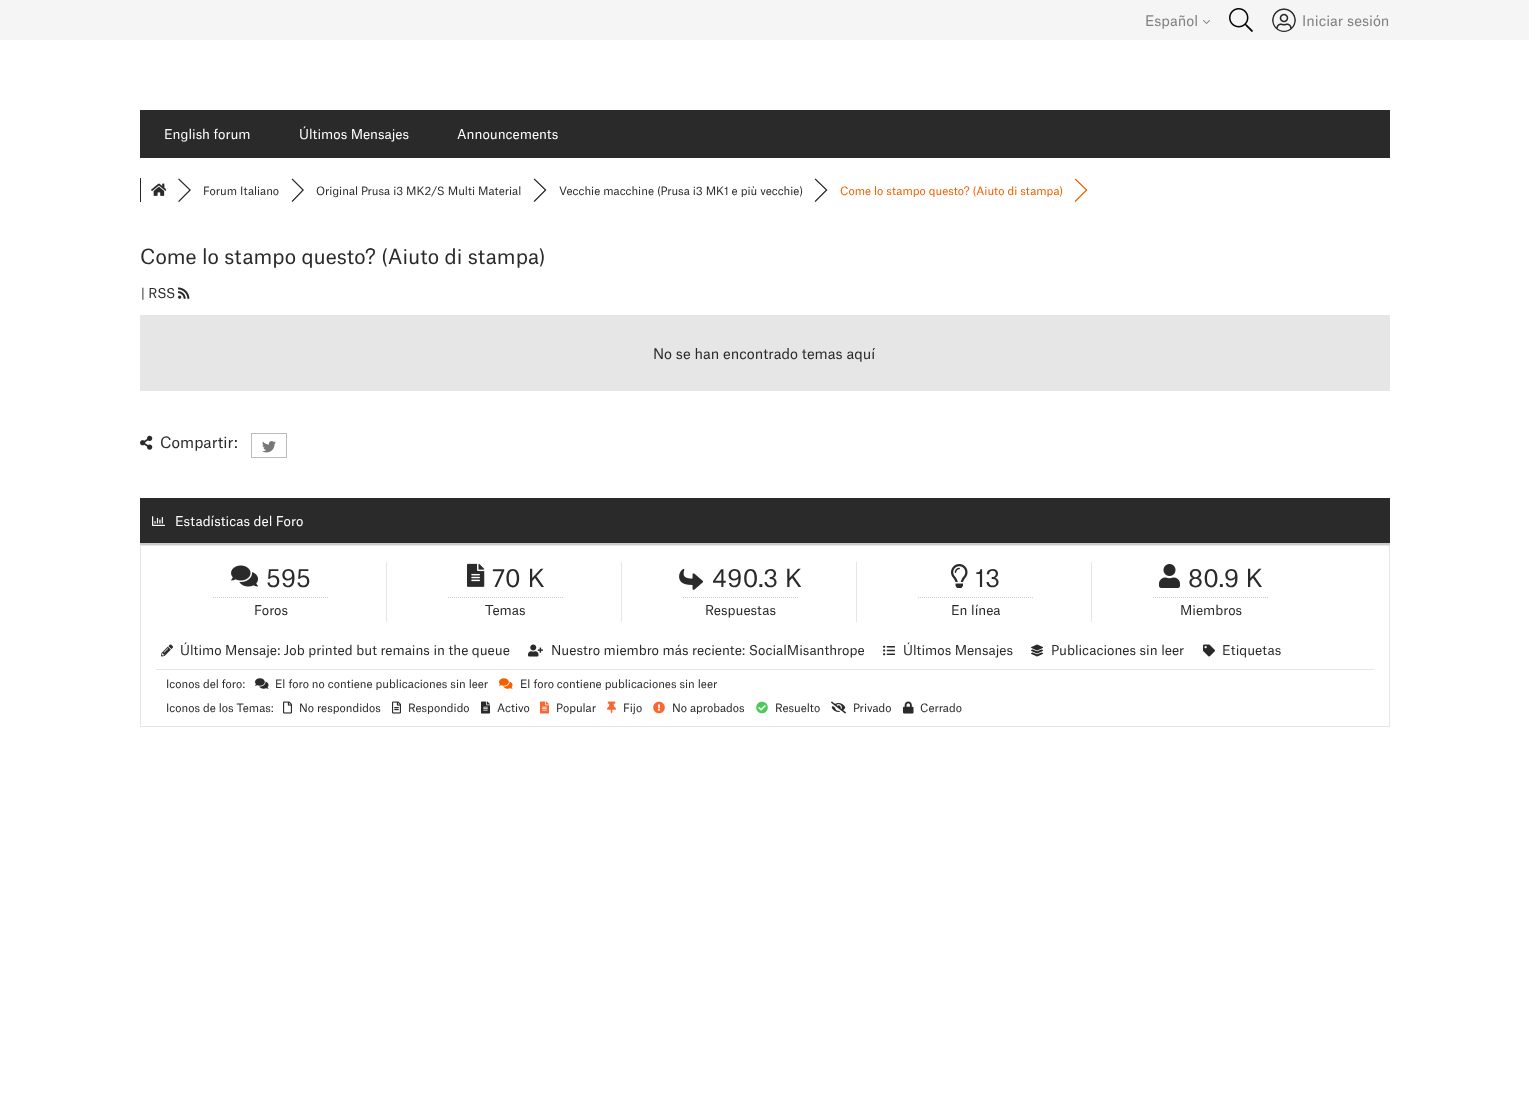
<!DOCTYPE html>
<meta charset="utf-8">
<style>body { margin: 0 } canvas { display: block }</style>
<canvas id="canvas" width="1529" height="1099"></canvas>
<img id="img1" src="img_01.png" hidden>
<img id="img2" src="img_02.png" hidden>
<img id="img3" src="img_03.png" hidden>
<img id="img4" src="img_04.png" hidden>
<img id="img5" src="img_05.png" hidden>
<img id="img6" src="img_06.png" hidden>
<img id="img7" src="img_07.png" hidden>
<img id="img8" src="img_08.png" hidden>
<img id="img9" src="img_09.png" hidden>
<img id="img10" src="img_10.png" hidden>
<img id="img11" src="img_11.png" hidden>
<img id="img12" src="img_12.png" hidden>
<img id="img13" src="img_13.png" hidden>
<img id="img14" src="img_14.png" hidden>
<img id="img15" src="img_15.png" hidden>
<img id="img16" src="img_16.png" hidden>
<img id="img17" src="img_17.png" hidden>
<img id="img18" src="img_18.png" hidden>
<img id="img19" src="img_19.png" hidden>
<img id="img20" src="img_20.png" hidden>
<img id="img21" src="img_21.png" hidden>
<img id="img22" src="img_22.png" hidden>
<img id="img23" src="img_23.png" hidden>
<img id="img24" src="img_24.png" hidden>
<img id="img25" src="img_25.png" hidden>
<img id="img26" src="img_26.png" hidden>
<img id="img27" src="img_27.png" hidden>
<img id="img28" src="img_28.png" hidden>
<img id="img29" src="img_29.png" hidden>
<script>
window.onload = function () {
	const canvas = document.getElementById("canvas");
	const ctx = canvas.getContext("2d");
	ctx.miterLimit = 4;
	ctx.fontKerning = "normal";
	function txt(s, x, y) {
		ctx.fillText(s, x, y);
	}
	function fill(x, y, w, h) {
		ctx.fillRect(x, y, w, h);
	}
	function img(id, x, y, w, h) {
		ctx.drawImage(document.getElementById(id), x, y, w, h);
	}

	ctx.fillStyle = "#FFFFFF";
	fill(0, 0, 1529, 1099);
	ctx.fillStyle = "#F5F5F5";
	fill(0, 0, 1529, 40);
	img("img1", 1203, 20, 7, 4);
	img("img2", 1229, 8, 24, 24);
	img("img3", 1272, 8, 24, 24);
	ctx.fillStyle = "#2A2A2A";
	fill(140, 110, 1250, 48);
	fill(140, 178, 1, 24);
	img("img4", 151, 183, 16, 13);
	ctx.beginPath();
	ctx.moveTo(179, 178.5);
	ctx.lineTo(178, 179.5);
	ctx.lineTo(189, 190);
	ctx.lineTo(178, 201);
	ctx.lineTo(179, 202);
	ctx.lineTo(191, 190);
	ctx.closePath();
	ctx.fill();
	ctx.fillStyle = "#FFFFFF";
	ctx.beginPath();
	ctx.moveTo(177, 178.5);
	ctx.lineTo(189, 190);
	ctx.lineTo(177, 202);
	ctx.lineTo(165.5, 190);
	ctx.closePath();
	ctx.fill();
	ctx.fillStyle = "#2A2A2A";
	ctx.beginPath();
	ctx.moveTo(292.5, 178.5);
	ctx.lineTo(291.5, 179.5);
	ctx.lineTo(302, 190);
	ctx.lineTo(291.5, 201);
	ctx.lineTo(292.5, 202);
	ctx.lineTo(304, 190);
	ctx.closePath();
	ctx.fill();
	ctx.beginPath();
	ctx.moveTo(534.5, 178.5);
	ctx.lineTo(533.5, 179.5);
	ctx.lineTo(544.5, 190);
	ctx.lineTo(533.5, 201);
	ctx.lineTo(534.5, 202);
	ctx.lineTo(546.5, 190);
	ctx.closePath();
	ctx.fill();
	ctx.beginPath();
	ctx.moveTo(815.5, 178.5);
	ctx.lineTo(814.5, 179.5);
	ctx.lineTo(825.5, 190);
	ctx.lineTo(814.5, 201);
	ctx.lineTo(815.5, 202);
	ctx.lineTo(827.5, 190);
	ctx.closePath();
	ctx.fill();
	ctx.fillStyle = "#F26000";
	ctx.beginPath();
	ctx.moveTo(1075.5, 178.5);
	ctx.lineTo(1074.5, 179.5);
	ctx.lineTo(1085.5, 190);
	ctx.lineTo(1074.5, 201);
	ctx.lineTo(1075.5, 202);
	ctx.lineTo(1087.5, 190);
	ctx.closePath();
	ctx.fill();
	ctx.fillStyle = "#FFFFFF";
	ctx.beginPath();
	ctx.moveTo(1073.5, 178.5);
	ctx.lineTo(1085.5, 190);
	ctx.lineTo(1073.5, 202);
	ctx.lineTo(1062, 190);
	ctx.closePath();
	ctx.fill();
	img("img5", 178, 287, 12, 12);
	ctx.fillStyle = "#E6E6E6";
	fill(140, 315, 1250, 76);
	img("img6", 140, 435, 13, 15);
	ctx.strokeStyle = "#BBBBBB";
	ctx.strokeRect(251.5, 433.5, 35, 24);
	img("img7", 262, 441, 14, 12);
	ctx.fillStyle = "#2A2A2A";
	fill(140, 498, 1250, 45);
	ctx.fillStyle = "#CCCCCC";
	fill(140, 543, 1250, 2);
	img("img8", 152, 516, 13, 10);
	ctx.strokeStyle = "#E6E6E6";
	ctx.strokeRect(140.5, 545.5, 1249, 181);
	ctx.fillStyle = "#E6E6E6";
	fill(386, 562, 1, 60);
	img("img9", 231, 565, 27, 22);
	ctx.beginPath();
	ctx.moveTo(213, 597.5);
	ctx.lineTo(328, 597.5);
	ctx.strokeStyle = "#CCCCCC";
	ctx.setLineDash([1, 1]);
	ctx.stroke();
	fill(621, 562, 1, 60);
	img("img10", 467, 563, 18, 24);
	ctx.beginPath();
	ctx.moveTo(448, 597.5);
	ctx.lineTo(563, 597.5);
	ctx.stroke();
	fill(856, 562, 1, 60);
	img("img11", 679, 568, 24, 22);
	ctx.beginPath();
	ctx.moveTo(683, 597.5);
	ctx.lineTo(798, 597.5);
	ctx.stroke();
	fill(1091, 562, 1, 60);
	img("img12", 951, 564, 17, 24);
	ctx.beginPath();
	ctx.moveTo(918, 597.5);
	ctx.lineTo(1033, 597.5);
	ctx.stroke();
	img("img13", 1159, 564, 21, 24);
	ctx.beginPath();
	ctx.moveTo(1153, 597.5);
	ctx.lineTo(1269, 597.5);
	ctx.stroke();
	img("img14", 161, 644, 12, 13);
	img("img15", 528, 644, 15, 13);
	img("img16", 883, 645, 12, 11);
	img("img17", 1031, 644, 12, 13);
	img("img18", 1203, 644, 12, 13);
	fill(156, 669, 1218, 1);
	img("img19", 255, 678, 14, 11);
	img("img20", 499, 678, 14, 11);
	img("img21", 283, 701, 9, 13);
	img("img22", 392, 701, 9, 13);
	img("img23", 481, 701, 9, 13);
	img("img24", 540, 701, 9, 13);
	img("img25", 607, 701, 9, 13);
	img("img26", 653, 701, 12, 13);
	img("img27", 756, 701, 12, 13);
	img("img28", 831, 701, 15, 13);
	img("img29", 903, 701, 11, 13);
	ctx.font = "14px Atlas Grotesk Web";
	ctx.fillStyle = "#808080";
	txt("Español", 1145, 26);
	txt("Iniciar sesión", 1302, 26);
	ctx.font = "13px Atlas Grotesk Web";
	ctx.fillStyle = "#FFFFFF";
	txt("English forum", 164, 139);
	txt("Últimos Mensajes", 299, 139);
	txt("Announcements", 457, 139);
	ctx.font = "11px Atlas Grotesk Web";
	ctx.fillStyle = "#2A2A2A";
	txt("Forum Italiano", 203, 195);
	ctx.fillStyle = "#FFFFFF";
	ctx.beginPath();
	ctx.moveTo(290.5, 178.5);
	ctx.lineTo(302, 190);
	ctx.lineTo(290.5, 202);
	ctx.lineTo(278.5, 190);
	ctx.closePath();
	ctx.fill();
	ctx.fillStyle = "#2A2A2A";
	txt("Original Prusa i3 MK2/S Multi Material", 316, 195);
	ctx.fillStyle = "#FFFFFF";
	ctx.beginPath();
	ctx.moveTo(532.5, 178.5);
	ctx.lineTo(544.5, 190);
	ctx.lineTo(532.5, 202);
	ctx.lineTo(520.5, 190);
	ctx.closePath();
	ctx.fill();
	ctx.fillStyle = "#2A2A2A";
	txt("Vecchie macchine (Prusa i3 MK1 e più vecchie)", 559, 195);
	ctx.fillStyle = "#FFFFFF";
	ctx.beginPath();
	ctx.moveTo(813.5, 178.5);
	ctx.lineTo(825.5, 190);
	ctx.lineTo(813.5, 202);
	ctx.lineTo(801.5, 190);
	ctx.closePath();
	ctx.fill();
	ctx.fillStyle = "#F26000";
	txt("Come lo stampo questo? (Aiuto di stampa)", 840, 195);
	ctx.font = "20px Atlas Grotesk Web";
	ctx.fillStyle = "#2A2A2A";
	txt("Come lo stampo questo? (Aiuto di stampa)", 140, 264);
	ctx.font = "13px Atlas Grotesk Web";
	txt("| RSS", 141, 298);
	ctx.font = "14px Atlas Grotesk Web";
	txt("No se han encontrado temas aquí", 653, 359);
	ctx.font = "15px Atlas Grotesk Web";
	txt("Compartir:", 160, 448);
	ctx.font = "13px Atlas Grotesk Web";
	ctx.fillStyle = "#FFFFFF";
	txt("Estadísticas del Foro", 175, 526);
	ctx.font = "24px Atlas Grotesk Web";
	ctx.fillStyle = "#2A2A2A";
	txt("595", 266, 587);
	ctx.font = "13px Atlas Grotesk Web";
	txt("Foros", 254, 615);
	ctx.font = "24px Atlas Grotesk Web";
	txt("70 K", 492, 587);
	ctx.font = "13px Atlas Grotesk Web";
	txt("Temas", 485, 615);
	ctx.font = "24px Atlas Grotesk Web";
	txt("490.3 K", 712, 587);
	ctx.font = "13px Atlas Grotesk Web";
	txt("Respuestas", 705, 615);
	ctx.font = "24px Atlas Grotesk Web";
	txt("13", 975, 587);
	ctx.font = "13px Atlas Grotesk Web";
	txt("En línea", 951, 615);
	ctx.font = "24px Atlas Grotesk Web";
	txt("80.9 K", 1188, 587);
	ctx.font = "13px Atlas Grotesk Web";
	txt("Miembros", 1180, 615);
	txt("Último Mensaje: Job printed but remains in the queue", 180, 655);
	txt("Nuestro miembro más reciente: SocialMisanthrope", 551, 655);
	txt("Últimos Mensajes", 903, 655);
	txt("Publicaciones sin leer", 1051, 655);
	txt("Etiquetas", 1222, 655);
	ctx.font = "11px Atlas Grotesk Web";
	txt("Iconos del foro:", 166, 688);
	txt("El foro no contiene publicaciones sin leer", 275, 688);
	txt("El foro contiene publicaciones sin leer", 520, 688);
	txt("Iconos de los Temas:", 166, 712);
	txt("No respondidos", 299, 712);
	txt("Respondido", 408, 712);
	txt("Activo", 497, 712);
	txt("Popular", 556, 712);
	txt("Fijo", 623, 712);
	txt("No aprobados", 672, 712);
	txt("Resuelto", 775, 712);
	txt("Privado", 853, 712);
	txt("Cerrado", 920, 712);
};
</script>
